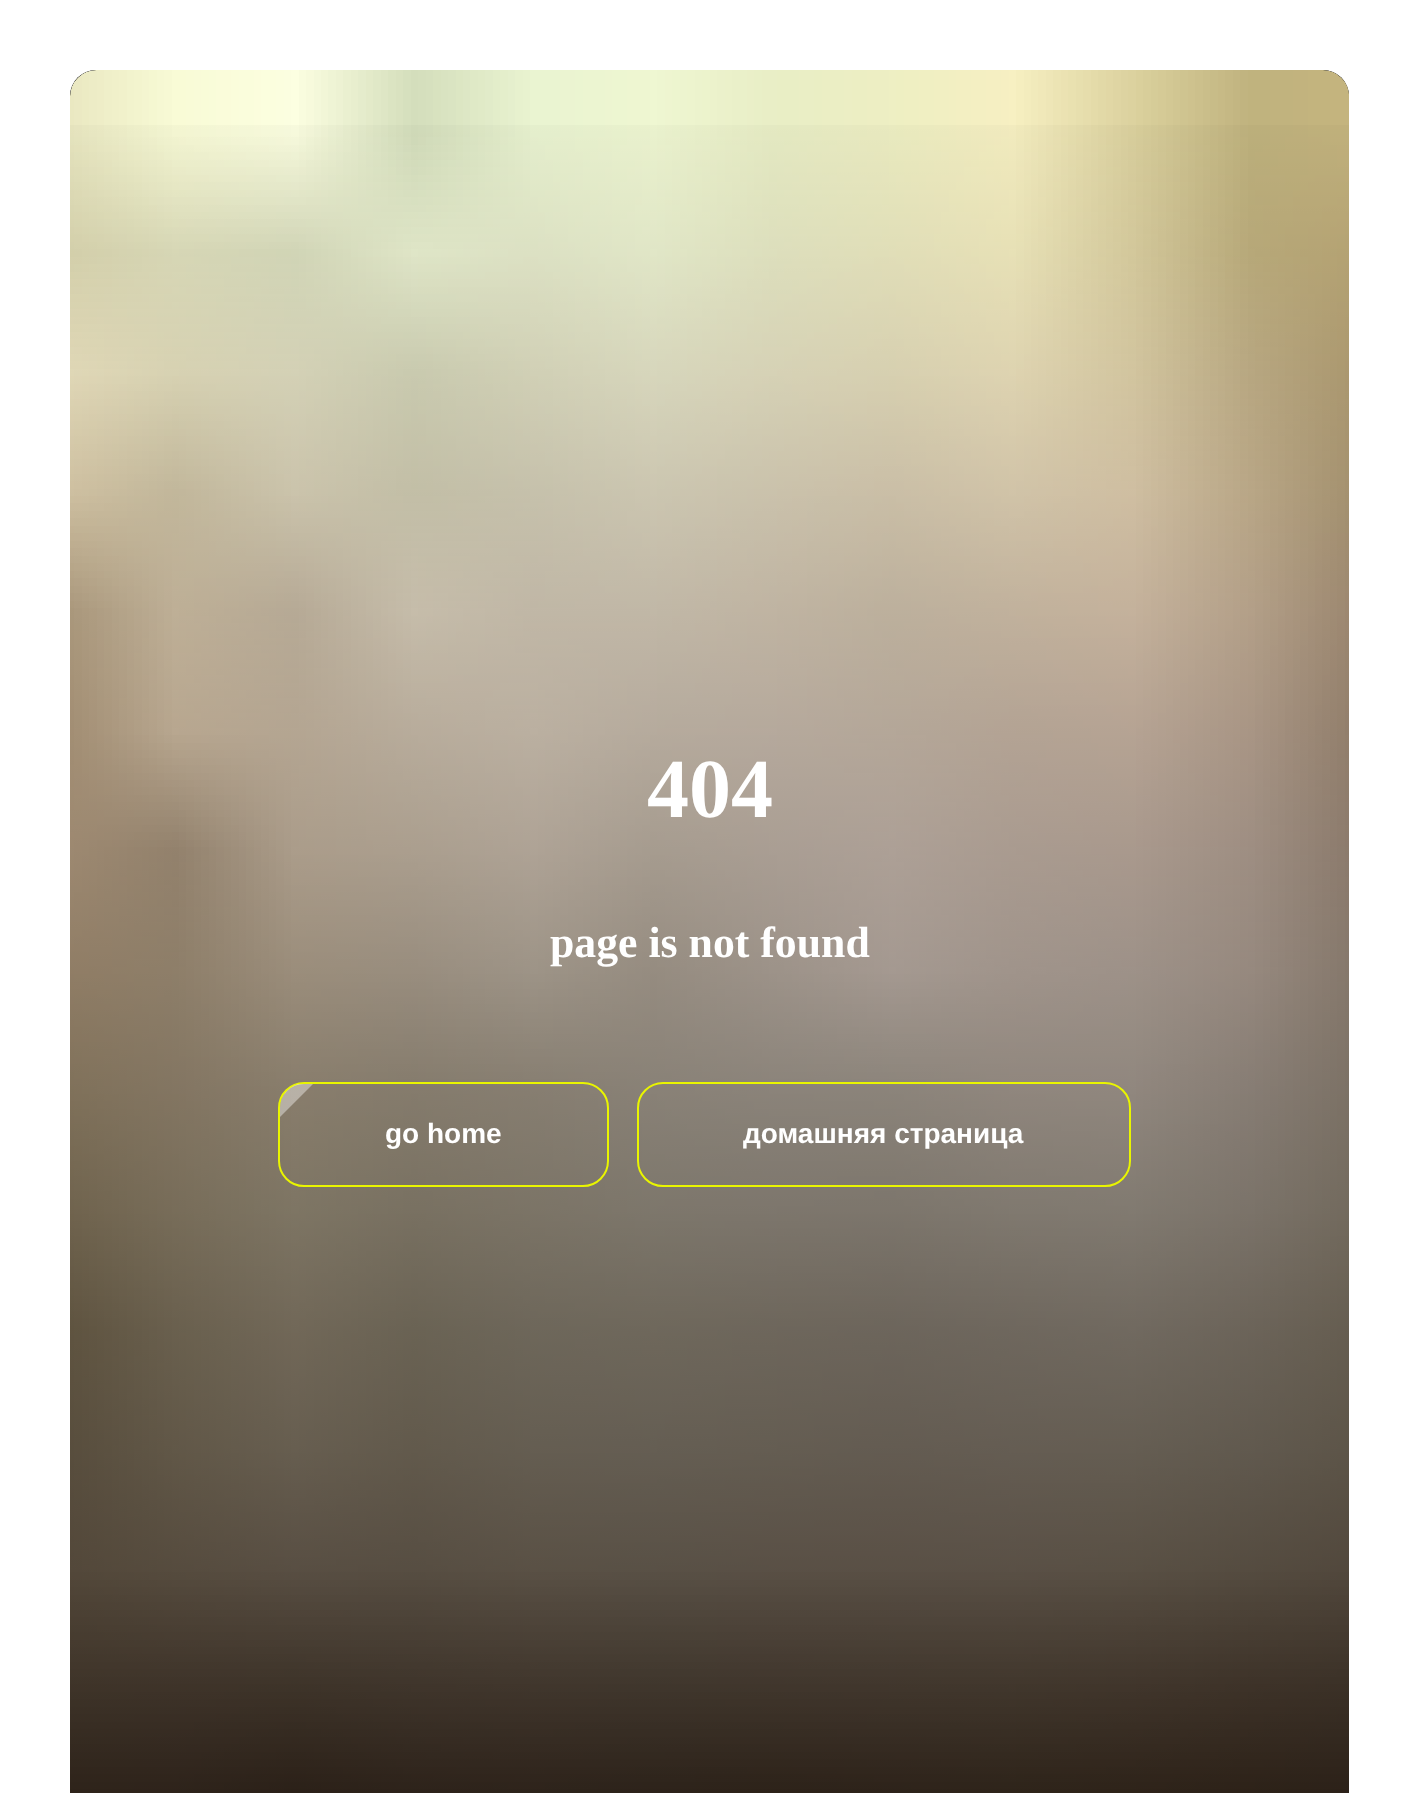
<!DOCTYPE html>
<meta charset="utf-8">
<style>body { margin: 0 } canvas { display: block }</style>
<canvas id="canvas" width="1418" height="1793"></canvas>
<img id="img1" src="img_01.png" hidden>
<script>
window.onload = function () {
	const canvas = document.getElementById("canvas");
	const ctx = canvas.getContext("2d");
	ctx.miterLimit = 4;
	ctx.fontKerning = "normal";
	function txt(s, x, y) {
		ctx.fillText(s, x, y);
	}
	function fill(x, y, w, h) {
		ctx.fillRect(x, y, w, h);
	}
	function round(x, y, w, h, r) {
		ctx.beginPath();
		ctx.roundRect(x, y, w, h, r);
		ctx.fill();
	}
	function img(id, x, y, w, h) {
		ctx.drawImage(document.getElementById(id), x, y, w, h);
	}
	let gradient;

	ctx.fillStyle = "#FFFFFF";
	fill(0, 0, 1418, 1793);
	ctx.fillStyle = "#000000";
	round(70, 70, 1279, 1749, 26);
	img("img1", 70, 70, 1279, 1723);
	gradient = ctx.createLinearGradient(710, 70, 710, 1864);
	gradient.addColorStop(0, "rgba(0, 1, 3, 0)");
	gradient.addColorStop(1, "rgba(0, 1, 3, 0.7)");
	ctx.fillStyle = gradient;
	fill(70, 125, 1279, 1668);
	ctx.beginPath();
	ctx.roundRect(279, 1083, 329, 103, 25);
	ctx.strokeStyle = "#E9F500";
	ctx.lineWidth = 2;
	ctx.stroke();
	gradient = ctx.createLinearGradient(184, 1135, 263, 1135);
	gradient.addColorStop(0, "rgba(255, 255, 255, 0.1)");
	gradient.addColorStop(1, "rgba(255, 255, 255, 0.4)");
	ctx.fillStyle = gradient;
	ctx.beginPath();
	ctx.moveTo(280, 1117);
	ctx.lineTo(280, 1108);
	ctx.bezierCurveTo(280, 1096.5, 287.5, 1087, 298, 1084);
	ctx.lineTo(313, 1084);
	ctx.closePath();
	ctx.fill();
	ctx.beginPath();
	ctx.roundRect(638, 1083, 492, 103, 25);
	ctx.stroke();
	ctx.font = "bold 84px Liberation Serif";
	ctx.fillStyle = "#FFFFFF";
	txt("404", 647, 817);
	ctx.font = "bold 43.75px Liberation Serif";
	txt("page is not found", 550, 957);
	ctx.font = "bold 28px Liberation Sans";
	txt("go home", 385, 1143);
	txt("домашняя страница", 743, 1143);
};
</script>
